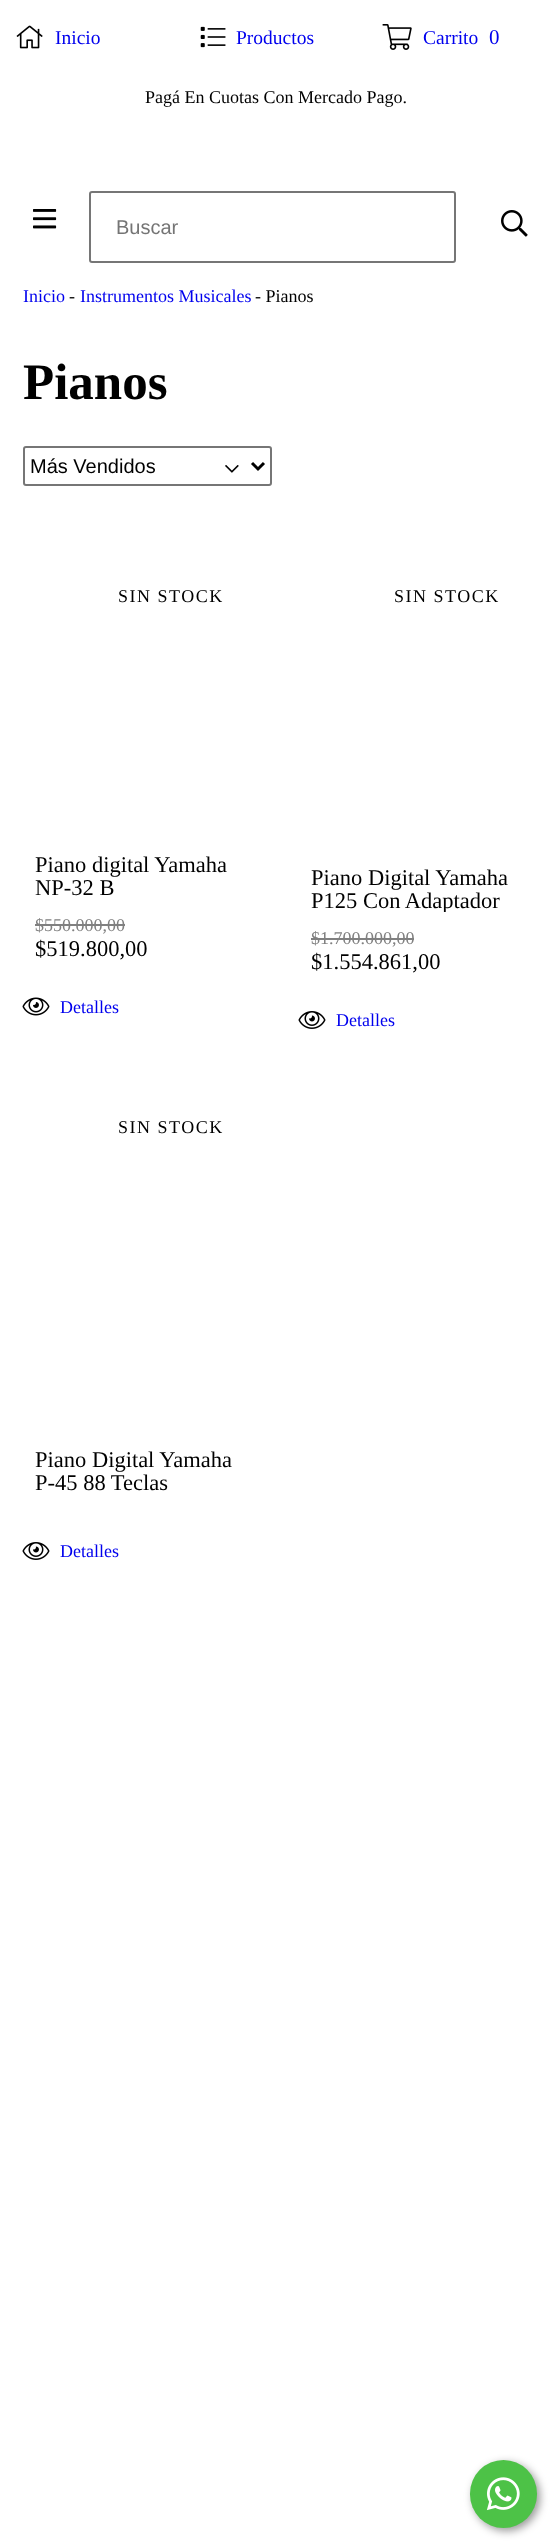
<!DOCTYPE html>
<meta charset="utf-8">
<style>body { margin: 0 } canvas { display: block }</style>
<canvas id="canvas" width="551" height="2542"></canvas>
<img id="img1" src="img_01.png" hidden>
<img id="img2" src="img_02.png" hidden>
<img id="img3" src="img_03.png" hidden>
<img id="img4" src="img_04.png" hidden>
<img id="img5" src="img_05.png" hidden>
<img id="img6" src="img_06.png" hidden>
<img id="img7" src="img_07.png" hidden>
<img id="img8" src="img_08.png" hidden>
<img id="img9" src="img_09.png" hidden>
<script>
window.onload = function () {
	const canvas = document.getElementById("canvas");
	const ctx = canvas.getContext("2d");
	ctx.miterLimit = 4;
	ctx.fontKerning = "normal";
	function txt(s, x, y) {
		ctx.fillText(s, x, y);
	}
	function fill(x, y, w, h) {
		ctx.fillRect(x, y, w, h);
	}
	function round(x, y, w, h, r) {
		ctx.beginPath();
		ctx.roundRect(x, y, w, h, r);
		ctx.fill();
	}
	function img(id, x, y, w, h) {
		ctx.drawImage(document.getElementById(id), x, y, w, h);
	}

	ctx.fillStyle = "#FFFFFF";
	fill(0, 0, 551, 2542);
	img("img1", 16, 25, 27, 24);
	img("img2", 200, 26, 26, 22);
	img("img3", 382, 24, 30, 26);
	img("img4", 33, 209, 24, 20);
	ctx.beginPath();
	ctx.roundRect(90, 192, 365, 70, 2);
	ctx.strokeStyle = "#767676";
	ctx.lineWidth = 2;
	ctx.stroke();
	img("img5", 501, 210, 27, 27);
	ctx.beginPath();
	ctx.roundRect(24, 447, 247, 38, 2);
	ctx.stroke();
	ctx.beginPath();
	ctx.moveTo(252, 463);
	ctx.lineTo(258, 469);
	ctx.lineTo(264, 463);
	ctx.strokeStyle = "#000000";
	ctx.lineWidth = 3;
	ctx.stroke();
	img("img6", 225, 465, 14, 8);
	ctx.fillStyle = "#808080";
	fill(35, 924, 90, 2);
	img("img7", 22, 997, 28, 19);
	fill(311, 938, 103, 2);
	img("img8", 298, 1011, 28, 18);
	img("img8", 22, 1542, 28, 18);
	ctx.fillStyle = "rgba(0, 0, 0, 0.4)";
	ctx.filter = "blur(4.5px)";
	ctx.beginPath();
	ctx.roundRect(473, 2463, 67, 68, 33.5);
	ctx.fill();
	ctx.filter = "none";
	ctx.fillStyle = "#4DC247";
	round(470, 2460, 67, 68, 33.5);
	img("img9", 486, 2477, 34, 34);
	ctx.font = "19.5px Liberation Serif";
	ctx.fillStyle = "#0000EE";
	txt("Inicio", 55, 44);
	txt("Productos", 236, 44);
	txt("Carrito", 423, 44);
	ctx.font = "21px Liberation Serif";
	txt("0", 489, 44);
	ctx.font = "18px Liberation Serif";
	ctx.fillStyle = "#000000";
	txt("Pagá En Cuotas Con Mercado Pago.", 145, 103);
	ctx.font = "20px Liberation Sans";
	ctx.fillStyle = "#757575";
	txt("Buscar", 116, 234);
	ctx.font = "18px Liberation Serif";
	ctx.fillStyle = "#0000EE";
	txt("Inicio", 23, 302);
	ctx.fillStyle = "#000000";
	txt("-", 69, 302);
	ctx.fillStyle = "#0000EE";
	txt("Instrumentos Musicales", 80, 302);
	ctx.fillStyle = "#000000";
	txt("- Pianos", 255, 302);
	ctx.font = "bold 51px Liberation Serif";
	txt("Pianos", 23, 399);
	ctx.font = "20px Liberation Sans";
	txt("Más Vendidos", 30, 473);
	ctx.letterSpacing = "1.5px";
	ctx.font = "18px Liberation Serif";
	txt("SIN STOCK", 118, 602);
	ctx.letterSpacing = "0px";
	ctx.font = "22.5px Liberation Serif";
	txt("Piano digital Yamaha", 35, 872);
	txt("NP-32 B", 35, 895);
	ctx.font = "18px Liberation Serif";
	ctx.fillStyle = "#808080";
	txt("$550.000,00", 35, 931);
	ctx.font = "22.5px Liberation Serif";
	ctx.fillStyle = "#000000";
	txt("$519.800,00", 35, 956);
	ctx.font = "18px Liberation Serif";
	ctx.fillStyle = "#0000EE";
	txt("Detalles", 60, 1013);
	ctx.letterSpacing = "1.5px";
	ctx.fillStyle = "#000000";
	txt("SIN STOCK", 394, 602);
	ctx.letterSpacing = "0px";
	ctx.font = "22.5px Liberation Serif";
	txt("Piano Digital Yamaha", 311, 885);
	ctx.save();
	ctx.beginPath();
	ctx.rect(311, 867, 207, 45);
	ctx.clip();
	txt("P125 Con Adaptador", 311, 908);
	ctx.restore();
	ctx.font = "18px Liberation Serif";
	ctx.fillStyle = "#808080";
	txt("$1.700.000,00", 311, 944);
	ctx.font = "22.5px Liberation Serif";
	ctx.fillStyle = "#000000";
	txt("$1.554.861,00", 311, 969);
	ctx.font = "18px Liberation Serif";
	ctx.fillStyle = "#0000EE";
	txt("Detalles", 336, 1026);
	ctx.letterSpacing = "1.5px";
	ctx.fillStyle = "#000000";
	txt("SIN STOCK", 118, 1133);
	ctx.letterSpacing = "0px";
	ctx.font = "22.5px Liberation Serif";
	txt("Piano Digital Yamaha", 35, 1467);
	txt("P-45 88 Teclas", 35, 1490);
	ctx.font = "18px Liberation Serif";
	ctx.fillStyle = "#0000EE";
	txt("Detalles", 60, 1557);
};
</script>
